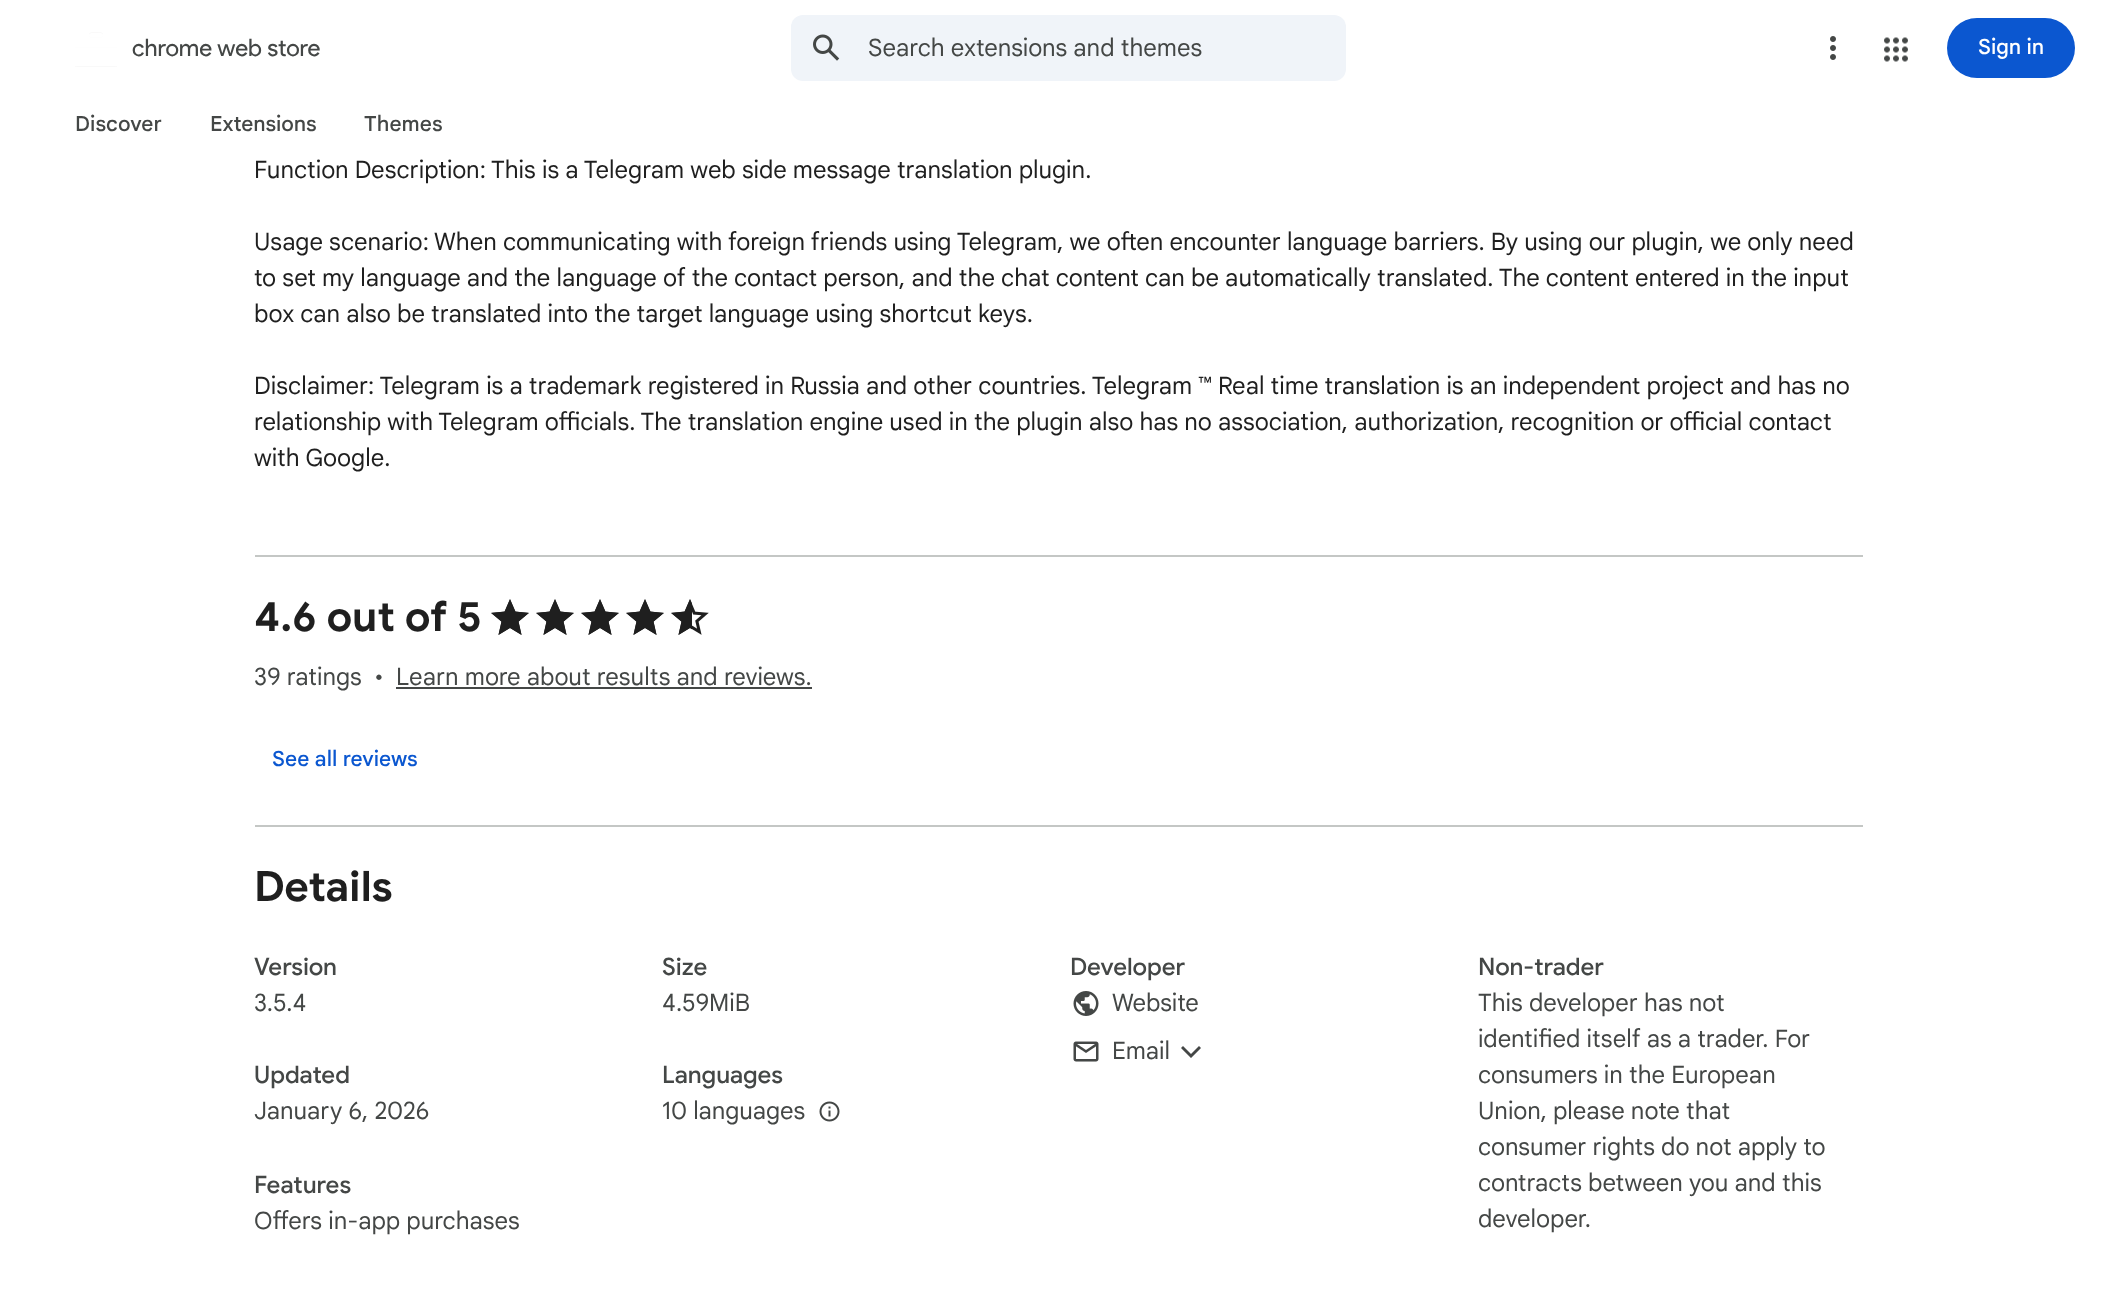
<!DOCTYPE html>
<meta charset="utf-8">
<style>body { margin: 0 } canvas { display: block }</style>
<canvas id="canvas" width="2116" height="1292"></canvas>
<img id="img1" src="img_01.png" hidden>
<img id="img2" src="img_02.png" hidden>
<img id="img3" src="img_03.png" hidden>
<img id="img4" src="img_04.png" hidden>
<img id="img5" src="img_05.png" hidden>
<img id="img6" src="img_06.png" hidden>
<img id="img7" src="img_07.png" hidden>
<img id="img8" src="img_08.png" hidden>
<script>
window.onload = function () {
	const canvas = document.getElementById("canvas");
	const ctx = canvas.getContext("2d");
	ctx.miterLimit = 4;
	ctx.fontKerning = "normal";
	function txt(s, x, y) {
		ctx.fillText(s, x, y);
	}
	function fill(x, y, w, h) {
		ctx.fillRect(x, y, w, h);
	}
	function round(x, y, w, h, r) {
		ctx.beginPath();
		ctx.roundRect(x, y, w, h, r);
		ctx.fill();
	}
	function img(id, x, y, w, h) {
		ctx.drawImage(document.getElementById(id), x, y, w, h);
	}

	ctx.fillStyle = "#FFFFFF";
	fill(0, 0, 2116, 1292);
	img("img1", 75, 32, 42, 35);
	ctx.fillStyle = "#F0F4F9";
	round(791, 15, 555, 66, 12);
	img("img2", 813, 34, 27, 27);
	img("img3", 1830, 36, 6, 24);
	img("img4", 1884, 37, 24, 25);
	ctx.fillStyle = "#0B57D0";
	round(1947, 18, 128, 60, 30);
	ctx.fillStyle = "#C4C7C5";
	fill(255, 555, 1608, 2);
	fill(255, 825, 1608, 2);
	img("img5", 491, 599, 38, 36);
	img("img5", 536, 599, 38, 36);
	img("img5", 581, 599, 38, 36);
	img("img5", 626, 599, 38, 36);
	img("img5", 671, 599, 38, 36);
	ctx.fillStyle = "#1F1F1F";
	ctx.beginPath();
	ctx.moveTo(510, 628);
	ctx.lineTo(521.5, 635);
	ctx.lineTo(518.5, 621.5);
	ctx.lineTo(529, 613);
	ctx.lineTo(515.5, 611.5);
	ctx.lineTo(510, 599);
	ctx.lineTo(504.5, 611.5);
	ctx.lineTo(491, 613);
	ctx.lineTo(501.5, 621.5);
	ctx.lineTo(498.5, 635);
	ctx.closePath();
	ctx.fill();
	ctx.beginPath();
	ctx.moveTo(555, 628);
	ctx.lineTo(566.5, 635);
	ctx.lineTo(563.5, 621.5);
	ctx.lineTo(574, 613);
	ctx.lineTo(560.5, 611.5);
	ctx.lineTo(555, 599);
	ctx.lineTo(549.5, 611.5);
	ctx.lineTo(536, 613);
	ctx.lineTo(546.5, 621.5);
	ctx.lineTo(543.5, 635);
	ctx.closePath();
	ctx.fill();
	ctx.beginPath();
	ctx.moveTo(600, 628);
	ctx.lineTo(611.5, 635);
	ctx.lineTo(608.5, 621.5);
	ctx.lineTo(619, 613);
	ctx.lineTo(605.5, 611.5);
	ctx.lineTo(600, 599);
	ctx.lineTo(594.5, 611.5);
	ctx.lineTo(581, 613);
	ctx.lineTo(591.5, 621.5);
	ctx.lineTo(588.5, 635);
	ctx.closePath();
	ctx.fill();
	ctx.beginPath();
	ctx.moveTo(645, 628);
	ctx.lineTo(656.5, 635);
	ctx.lineTo(653.5, 621.5);
	ctx.lineTo(664, 613);
	ctx.lineTo(650.5, 611.5);
	ctx.lineTo(645, 599);
	ctx.lineTo(639.5, 611.5);
	ctx.lineTo(626, 613);
	ctx.lineTo(636.5, 621.5);
	ctx.lineTo(633.5, 635);
	ctx.closePath();
	ctx.fill();
	ctx.save();
	ctx.beginPath();
	ctx.rect(668, 596, 24, 45);
	ctx.clip();
	ctx.beginPath();
	ctx.moveTo(690, 628);
	ctx.lineTo(701.5, 635);
	ctx.lineTo(698.5, 621.5);
	ctx.lineTo(709, 613);
	ctx.lineTo(695.5, 611.5);
	ctx.lineTo(690, 599);
	ctx.lineTo(684.5, 611.5);
	ctx.lineTo(671, 613);
	ctx.lineTo(681.5, 621.5);
	ctx.lineTo(678.5, 635);
	ctx.closePath();
	ctx.fill();
	ctx.restore();
	ctx.fillStyle = "#444746";
	fill(396, 687, 416, 2);
	img("img6", 1073, 991, 26, 25);
	img("img7", 1073, 1041, 26, 21);
	ctx.beginPath();
	ctx.moveTo(1183, 1046);
	ctx.lineTo(1181, 1048);
	ctx.lineTo(1191, 1058);
	ctx.lineTo(1201, 1048);
	ctx.lineTo(1199, 1046);
	ctx.lineTo(1191, 1054);
	ctx.fill();
	img("img8", 819, 1101, 21, 21);
	ctx.font = "24px Product Sans";
	txt("chrome web store", 132, 56);
	ctx.font = "24px Google Sans";
	txt("Search extensions and themes", 868, 56);
	ctx.font = "500 21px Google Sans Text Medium";
	ctx.fillStyle = "#FFFFFF";
	txt("Sign in", 1978, 54);
	ctx.fillStyle = "#444746";
	txt("Discover", 75, 131);
	txt("Extensions", 210, 131);
	txt("Themes", 364, 131);
	ctx.font = "24px Google Sans";
	ctx.fillStyle = "#1F1F1F";
	txt("Function Description: This is a Telegram web side message translation plugin.", 254, 178);
	txt("Usage scenario: When communicating with foreign friends using Telegram, we often encounter language barriers. By using our plugin, we only need", 254, 250);
	txt("to set my language and the language of the contact person, and the chat content can be automatically translated. The content entered in the input", 254, 286);
	txt("box can also be translated into the target language using shortcut keys.", 254, 322);
	txt("Disclaimer: Telegram is a trademark registered in Russia and other countries. Telegram ™ Real time translation is an independent project and has no", 254, 394);
	txt("relationship with Telegram officials. The translation engine used in the plugin also has no association, authorization, recognition or official contact", 254, 430);
	txt("with Google.", 254, 466);
	ctx.font = "bold 42px Google Sans";
	txt("4.6 out of 5", 254, 631);
	ctx.font = "24px Google Sans";
	ctx.fillStyle = "#444746";
	txt("39 ratings", 254, 685);
	txt("•", 374, 685);
	txt("Learn more about results and reviews.", 396, 685);
	ctx.font = "500 21px Google Sans Text Medium";
	ctx.fillStyle = "#0B57D0";
	txt("See all reviews", 272, 766);
	ctx.font = "bold 42px Google Sans";
	ctx.fillStyle = "#1F1F1F";
	txt("Details", 254, 901);
	ctx.font = "500 24px Google Sans";
	ctx.fillStyle = "#444746";
	txt("Version", 254, 975);
	ctx.font = "24px Google Sans";
	txt("3.5.4", 254, 1011);
	ctx.font = "500 24px Google Sans";
	txt("Size", 662, 975);
	ctx.font = "24px Google Sans";
	txt("4.59MiB", 662, 1011);
	ctx.font = "500 24px Google Sans";
	txt("Developer", 1070, 975);
	ctx.font = "24px Google Sans";
	txt("Website", 1112, 1011);
	txt("Email", 1112, 1059);
	ctx.font = "500 24px Google Sans";
	txt("Non-trader", 1478, 975);
	ctx.font = "24px Google Sans";
	txt("This developer has not", 1478, 1011);
	txt("identified itself as a trader. For", 1478, 1047);
	txt("consumers in the European", 1478, 1083);
	txt("Union, please note that", 1478, 1119);
	txt("consumer rights do not apply to", 1478, 1155);
	txt("contracts between you and this", 1478, 1191);
	txt("developer.", 1478, 1227);
	ctx.font = "500 24px Google Sans";
	txt("Updated", 254, 1083);
	ctx.font = "24px Google Sans";
	txt("January 6, 2026", 254, 1119);
	ctx.font = "500 24px Google Sans";
	txt("Languages", 662, 1083);
	ctx.font = "24px Google Sans";
	txt("10 languages", 662, 1119);
	ctx.font = "500 24px Google Sans";
	txt("Features", 254, 1193);
	ctx.font = "24px Google Sans";
	txt("Offers in-app purchases", 254, 1229);
};
</script>
